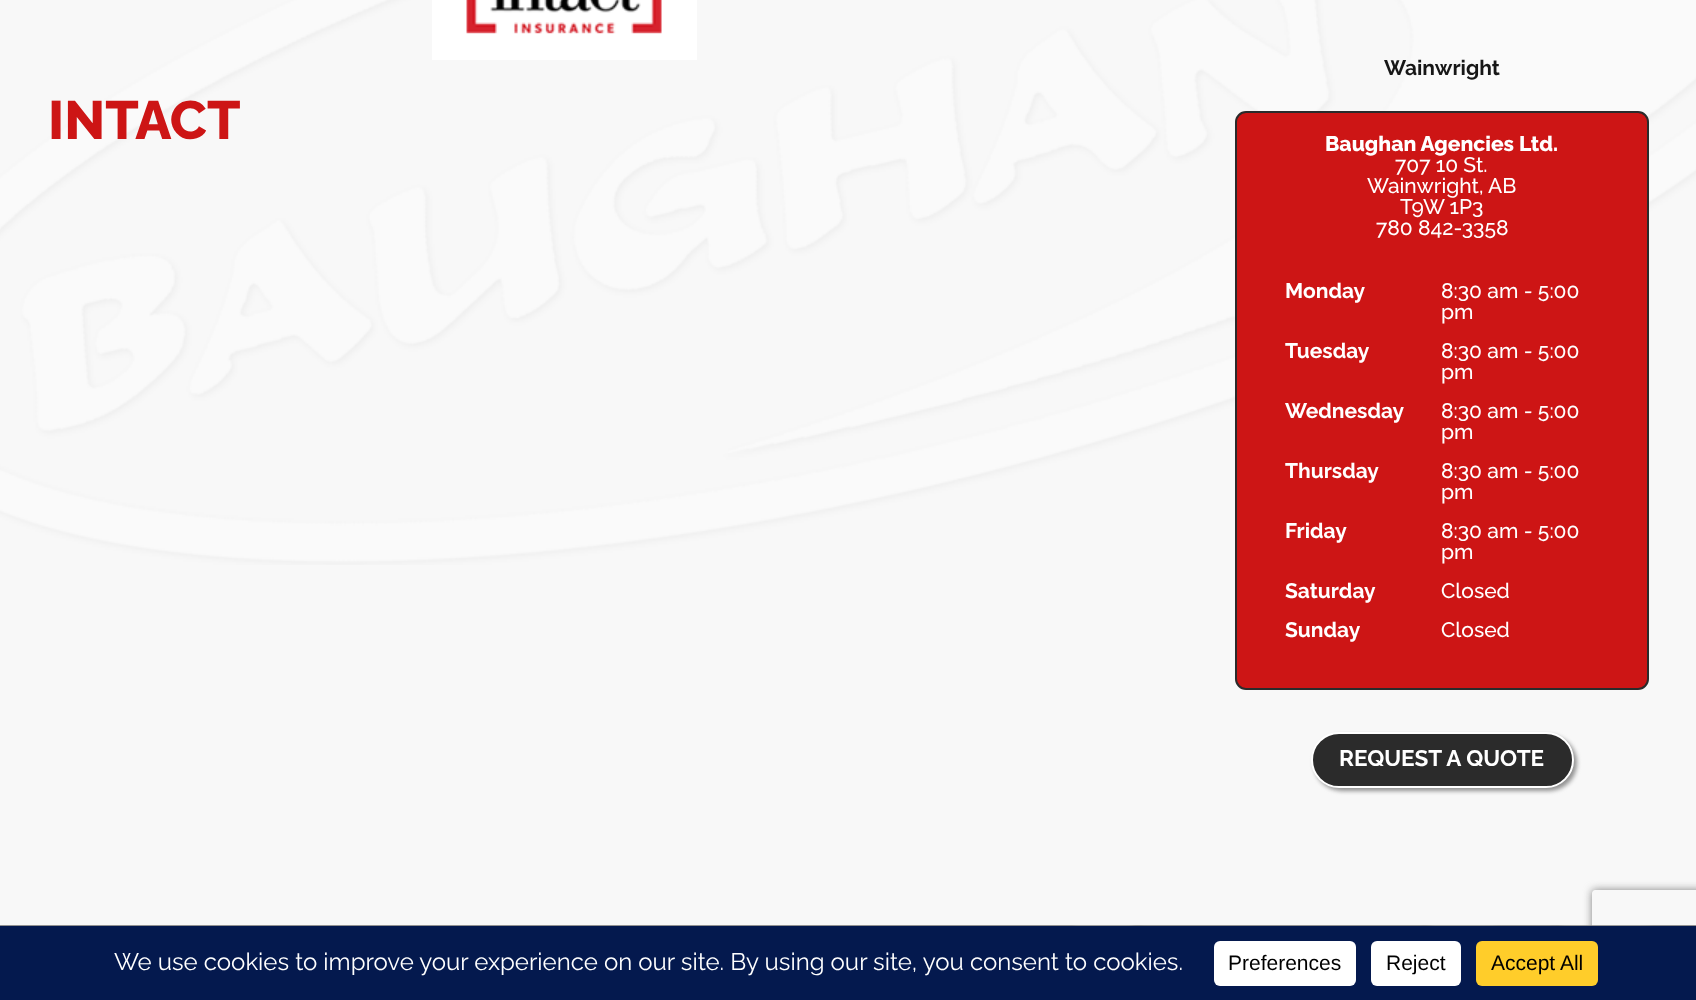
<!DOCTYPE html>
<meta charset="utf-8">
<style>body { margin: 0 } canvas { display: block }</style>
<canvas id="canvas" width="1696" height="1000"></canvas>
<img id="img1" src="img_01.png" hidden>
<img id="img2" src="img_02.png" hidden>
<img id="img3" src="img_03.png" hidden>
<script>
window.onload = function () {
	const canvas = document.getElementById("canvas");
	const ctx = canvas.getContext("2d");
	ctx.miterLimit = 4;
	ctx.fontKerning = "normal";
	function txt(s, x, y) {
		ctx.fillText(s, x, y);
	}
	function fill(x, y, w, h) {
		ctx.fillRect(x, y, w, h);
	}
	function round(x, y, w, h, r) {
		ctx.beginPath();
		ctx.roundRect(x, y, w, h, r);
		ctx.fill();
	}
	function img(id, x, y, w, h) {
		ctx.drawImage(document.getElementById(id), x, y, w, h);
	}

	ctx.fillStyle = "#F8F8F8";
	fill(0, 0, 1696, 1000);
	img("img1", 0, 0, 1696, 565);
	img("img2", 432, 0, 265, 60);
	ctx.fillStyle = "#CD1515";
	ctx.beginPath();
	ctx.roundRect(1236, 112, 412, 577, 10);
	ctx.fill();
	ctx.strokeStyle = "#2B2B2B";
	ctx.lineWidth = 2;
	ctx.stroke();
	ctx.fillStyle = "#919191";
	ctx.filter = "blur(2px)";
	ctx.beginPath();
	ctx.roundRect(1314, 735, 263, 56, 28);
	ctx.fill();
	ctx.filter = "none";
	ctx.fillStyle = "#2B2B2B";
	ctx.beginPath();
	ctx.roundRect(1312, 733, 261, 54, 27);
	ctx.fill();
	ctx.strokeStyle = "#FFFFFF";
	ctx.stroke();
	img("img3", 0, 925, 1696, 1);
	ctx.save();
	ctx.beginPath();
	ctx.moveTo(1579, 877);
	ctx.lineTo(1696, 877);
	ctx.lineTo(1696, 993);
	ctx.lineTo(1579, 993);
	ctx.closePath();
	ctx.moveTo(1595, 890);
	ctx.lineTo(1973, 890);
	ctx.bezierCurveTo(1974.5, 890, 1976, 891.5, 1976, 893);
	ctx.lineTo(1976, 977);
	ctx.bezierCurveTo(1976, 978.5, 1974.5, 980, 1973, 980);
	ctx.lineTo(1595, 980);
	ctx.bezierCurveTo(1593.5, 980, 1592, 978.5, 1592, 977);
	ctx.lineTo(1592, 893);
	ctx.bezierCurveTo(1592, 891.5, 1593.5, 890, 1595, 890);
	ctx.closePath();
	ctx.clip("evenodd");
	ctx.fillStyle = "#808080";
	ctx.filter = "blur(4px)";
	ctx.beginPath();
	ctx.roundRect(1592, 890, 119, 90, 3);
	ctx.fill();
	ctx.filter = "none";
	ctx.restore();
	ctx.fillStyle = "#04194E";
	fill(0, 926, 1696, 74);
	ctx.fillStyle = "#FFFFFF";
	round(1214, 941, 142, 45, 6);
	round(1371, 941, 90, 45, 6);
	ctx.fillStyle = "#FFCD2A";
	round(1476, 941, 122, 45, 6);
	ctx.font = "800 54px Raleway";
	ctx.fillStyle = "#CD1515";
	txt("INTACT", 48, 139);
	ctx.font = "bold 21px Raleway";
	ctx.fillStyle = "#171717";
	txt("Wainwright", 1384, 75);
	ctx.font = "800 21px Raleway";
	ctx.fillStyle = "#FFFFFF";
	txt("Baughan Agencies Ltd.", 1325, 151);
	ctx.font = "500 21px Raleway";
	txt("707 10 St.", 1395, 172);
	txt("Wainwright, AB", 1367, 193);
	txt("T9W 1P3", 1400, 214);
	txt("780 842-3358", 1376, 235);
	ctx.font = "bold 21px Raleway";
	txt("Monday", 1285, 298);
	ctx.font = "500 21px Raleway";
	txt("8:30 am - 5:00", 1441, 298);
	txt("pm", 1441, 319);
	ctx.font = "bold 21px Raleway";
	txt("Tuesday", 1285, 358);
	ctx.font = "500 21px Raleway";
	txt("8:30 am - 5:00", 1441, 358);
	txt("pm", 1441, 379);
	ctx.font = "bold 21px Raleway";
	txt("Wednesday", 1285, 418);
	ctx.font = "500 21px Raleway";
	txt("8:30 am - 5:00", 1441, 418);
	txt("pm", 1441, 439);
	ctx.font = "bold 21px Raleway";
	txt("Thursday", 1285, 478);
	ctx.font = "500 21px Raleway";
	txt("8:30 am - 5:00", 1441, 478);
	txt("pm", 1441, 499);
	ctx.font = "bold 21px Raleway";
	txt("Friday", 1285, 538);
	ctx.font = "500 21px Raleway";
	txt("8:30 am - 5:00", 1441, 538);
	txt("pm", 1441, 559);
	ctx.font = "bold 21px Raleway";
	txt("Saturday", 1285, 598);
	ctx.font = "500 21px Raleway";
	txt("Closed", 1441, 598);
	ctx.font = "bold 21px Raleway";
	txt("Sunday", 1285, 637);
	ctx.font = "500 21px Raleway";
	txt("Closed", 1441, 637);
	ctx.font = "bold 22.5px Raleway";
	txt("REQUEST A QUOTE", 1339, 766);
	ctx.font = "24px Raleway";
	txt("We use cookies to improve your experience on our site. By using our site, you consent to cookies.", 114, 970);
	ctx.font = "21px Liberation Sans";
	ctx.fillStyle = "#000000";
	txt("Preferences", 1228, 970);
	txt("Reject", 1386, 970);
	txt("Accept All", 1491, 970);
};
</script>
